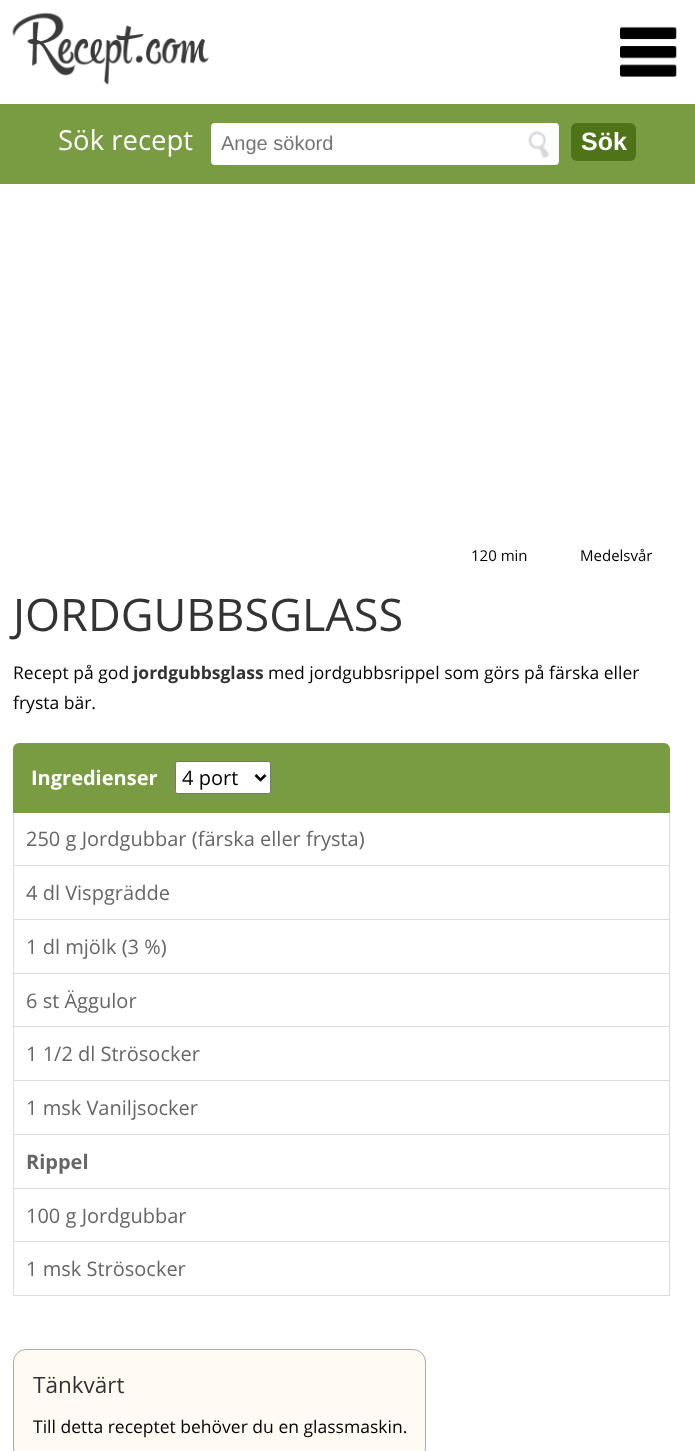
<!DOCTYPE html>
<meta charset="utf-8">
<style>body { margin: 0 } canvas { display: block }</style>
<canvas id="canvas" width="695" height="1451"></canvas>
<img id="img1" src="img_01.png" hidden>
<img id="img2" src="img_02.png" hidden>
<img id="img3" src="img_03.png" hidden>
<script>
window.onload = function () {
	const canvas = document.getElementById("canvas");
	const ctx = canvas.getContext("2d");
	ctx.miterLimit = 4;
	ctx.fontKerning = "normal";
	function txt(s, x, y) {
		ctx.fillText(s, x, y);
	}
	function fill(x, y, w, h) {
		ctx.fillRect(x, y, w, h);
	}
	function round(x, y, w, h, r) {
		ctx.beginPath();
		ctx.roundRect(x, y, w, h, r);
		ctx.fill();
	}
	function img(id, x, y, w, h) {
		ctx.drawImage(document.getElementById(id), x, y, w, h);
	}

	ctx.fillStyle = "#FFFFFF";
	fill(0, 0, 695, 1451);
	img("img1", 12, 12, 197, 73);
	img("img2", 620, 26, 57, 51);
	ctx.fillStyle = "#799B42";
	fill(0, 104, 695, 80);
	ctx.fillStyle = "#FFFFFF";
	round(211, 123, 348, 42, 4);
	img("img3", 528, 131, 21, 27);
	ctx.fillStyle = "#4E7417";
	round(571, 123, 65, 38, 6);
	ctx.fillStyle = "#799B42";
	ctx.beginPath();
	ctx.roundRect(13, 743, 657, 70, [6, 6, 0, 0]);
	ctx.fill();
	ctx.fillStyle = "#FFFFFF";
	ctx.beginPath();
	ctx.roundRect(175.5, 761.5, 95, 32, 2);
	ctx.fill();
	ctx.strokeStyle = "#767676";
	ctx.stroke();
	ctx.beginPath();
	ctx.moveTo(255.5, 775);
	ctx.lineTo(260.5, 780);
	ctx.lineTo(265.5, 775);
	ctx.strokeStyle = "#000000";
	ctx.lineWidth = 2.5;
	ctx.stroke();
	ctx.fillStyle = "#DDDDDD";
	fill(669, 813, 1, 483);
	fill(13, 865, 657, 1);
	fill(13, 813, 1, 53);
	fill(13, 919, 657, 1);
	fill(13, 866, 1, 54);
	fill(13, 973, 657, 1);
	fill(13, 920, 1, 54);
	fill(13, 1026, 657, 1);
	fill(13, 974, 1, 54);
	fill(13, 1080, 657, 1);
	fill(13, 1028, 1, 53);
	fill(13, 1134, 657, 1);
	fill(13, 1081, 1, 54);
	fill(13, 1188, 657, 1);
	fill(13, 1135, 1, 54);
	fill(13, 1241, 657, 1);
	fill(13, 1189, 1, 54);
	fill(13, 1295, 657, 1);
	fill(13, 1243, 1, 53);
	ctx.fillStyle = "#FFFBF2";
	ctx.beginPath();
	ctx.roundRect(13.5, 1349.5, 412, 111, 12.5);
	ctx.fill();
	ctx.strokeStyle = "#AAAAAA";
	ctx.lineWidth = 1;
	ctx.stroke();
	ctx.font = "27.5px Open Sans";
	ctx.fillStyle = "#FFFFFF";
	txt("Sök recept", 58, 150);
	ctx.font = "20px Liberation Sans";
	ctx.fillStyle = "#757575";
	txt("Ange sökord", 221, 150);
	ctx.font = "bold 25px Liberation Sans";
	ctx.fillStyle = "#FFFFFF";
	txt("Sök", 581, 150);
	ctx.font = "15px Open Sans";
	ctx.fillStyle = "#000000";
	txt("120 min", 471, 561);
	txt("Medelsvår", 580, 561);
	ctx.font = "45px Open Sans";
	ctx.fillStyle = "#333333";
	txt("JORDGUBBSGLASS", 13, 631);
	ctx.font = "17.5px Open Sans";
	ctx.fillStyle = "#000000";
	txt("Recept på god", 13, 679);
	ctx.font = "bold 17.5px Open Sans";
	ctx.fillStyle = "#333333";
	txt("jordgubbsglass", 133, 679);
	ctx.font = "17.5px Open Sans";
	ctx.fillStyle = "#000000";
	txt("med jordgubbsrippel som görs på färska eller", 268, 679);
	txt("frysta bär.", 13, 709);
	ctx.font = "bold 20px Open Sans";
	ctx.fillStyle = "#FFFFFF";
	txt("Ingredienser", 31, 785);
	ctx.font = "20px Open Sans";
	ctx.fillStyle = "#000000";
	txt("4 port", 182, 785);
	ctx.fillStyle = "#666666";
	txt("250 g Jordgubbar (färska eller frysta)", 26, 846);
	txt("4 dl Vispgrädde", 26, 900);
	txt("1 dl mjölk (3 %)", 26, 954);
	txt("6 st Äggulor", 26, 1008);
	txt("1 1/2 dl Strösocker", 26, 1061);
	txt("1 msk Vaniljsocker", 26, 1115);
	ctx.font = "bold 20px Open Sans";
	txt("Rippel", 26, 1169);
	ctx.font = "20px Open Sans";
	txt("100 g Jordgubbar", 26, 1223);
	txt("1 msk Strösocker", 26, 1276);
	ctx.font = "22.5px Open Sans";
	ctx.fillStyle = "#333333";
	txt("Tänkvärt", 33, 1393);
	ctx.font = "17.5px Open Sans";
	ctx.fillStyle = "#000000";
	txt("Till detta receptet behöver du en glassmaskin.", 33, 1433);
};
</script>
